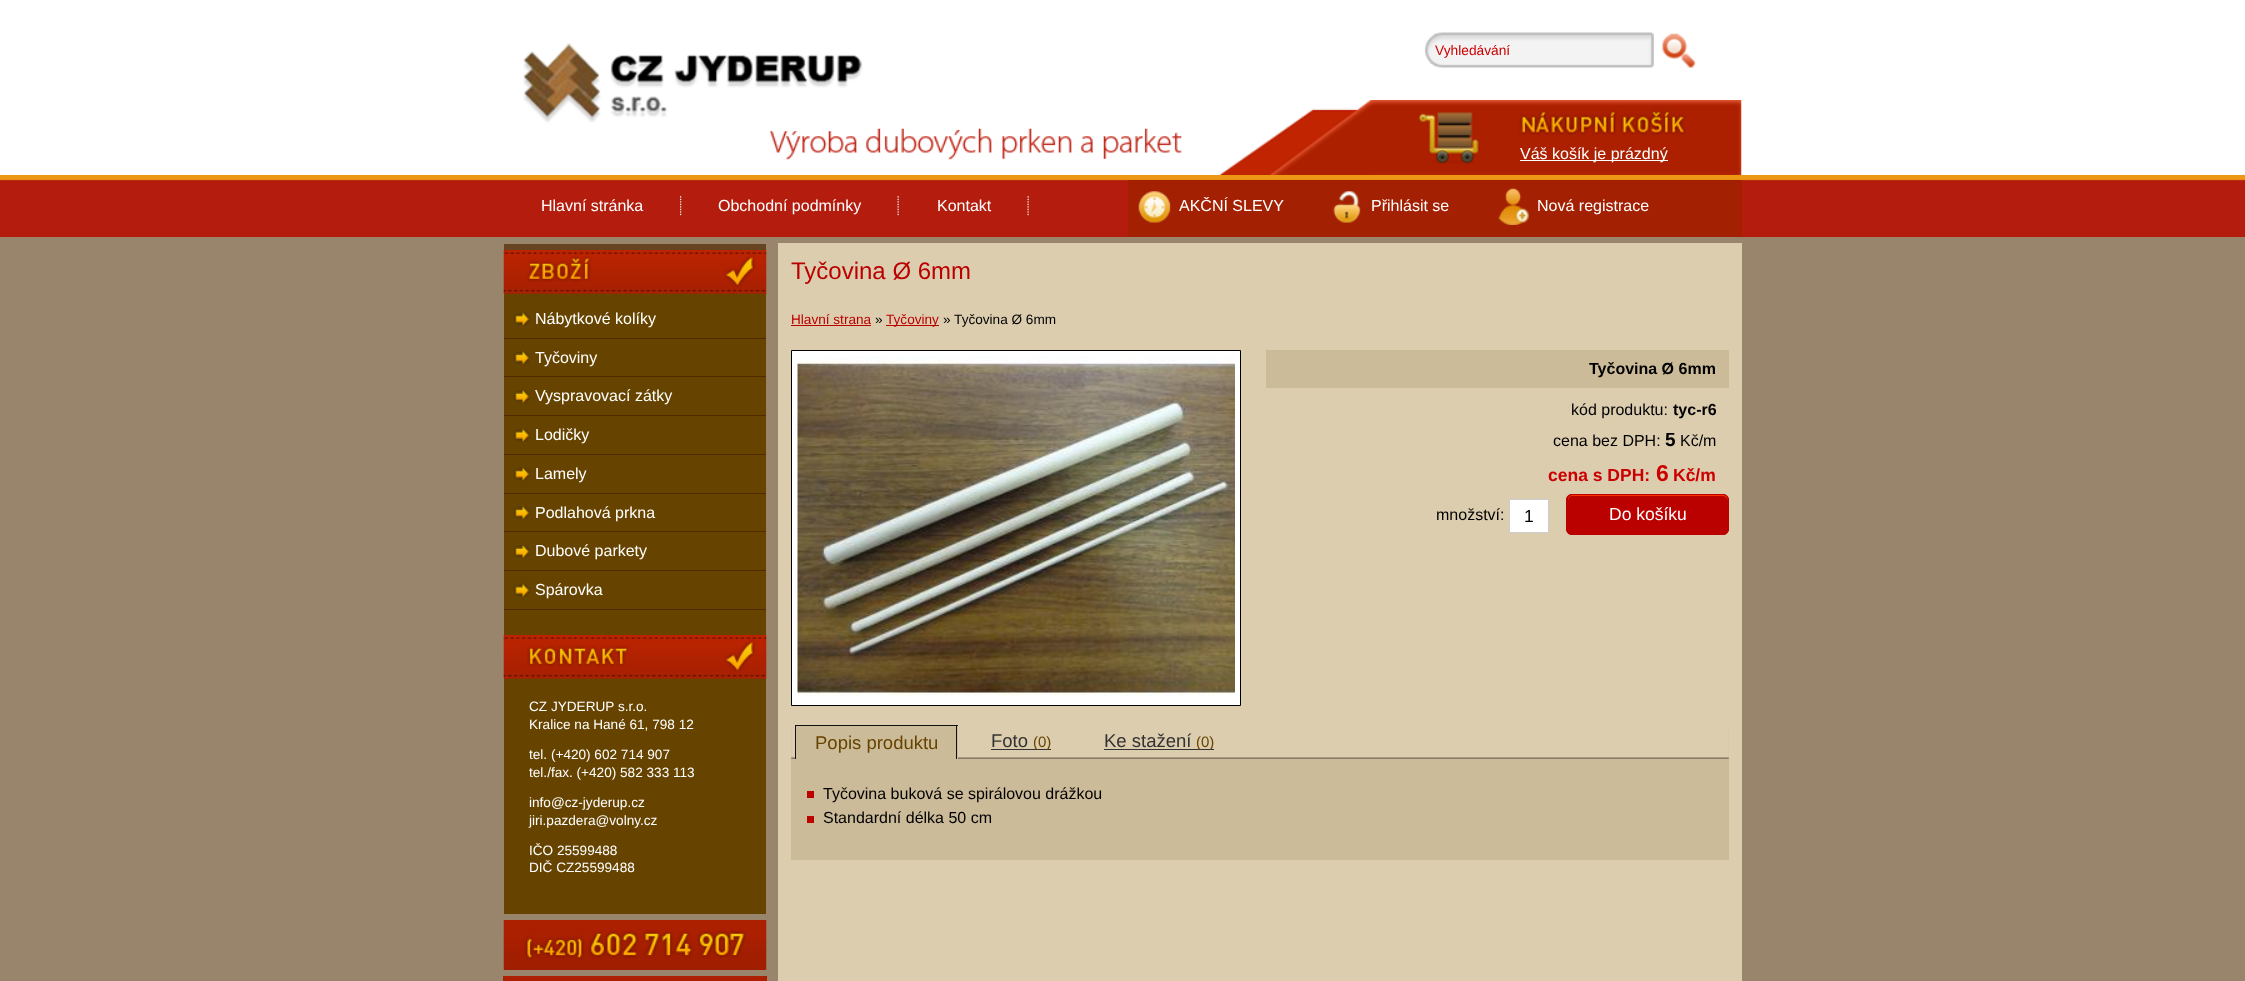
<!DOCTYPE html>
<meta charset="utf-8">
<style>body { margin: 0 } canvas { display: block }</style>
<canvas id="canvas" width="2245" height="981"></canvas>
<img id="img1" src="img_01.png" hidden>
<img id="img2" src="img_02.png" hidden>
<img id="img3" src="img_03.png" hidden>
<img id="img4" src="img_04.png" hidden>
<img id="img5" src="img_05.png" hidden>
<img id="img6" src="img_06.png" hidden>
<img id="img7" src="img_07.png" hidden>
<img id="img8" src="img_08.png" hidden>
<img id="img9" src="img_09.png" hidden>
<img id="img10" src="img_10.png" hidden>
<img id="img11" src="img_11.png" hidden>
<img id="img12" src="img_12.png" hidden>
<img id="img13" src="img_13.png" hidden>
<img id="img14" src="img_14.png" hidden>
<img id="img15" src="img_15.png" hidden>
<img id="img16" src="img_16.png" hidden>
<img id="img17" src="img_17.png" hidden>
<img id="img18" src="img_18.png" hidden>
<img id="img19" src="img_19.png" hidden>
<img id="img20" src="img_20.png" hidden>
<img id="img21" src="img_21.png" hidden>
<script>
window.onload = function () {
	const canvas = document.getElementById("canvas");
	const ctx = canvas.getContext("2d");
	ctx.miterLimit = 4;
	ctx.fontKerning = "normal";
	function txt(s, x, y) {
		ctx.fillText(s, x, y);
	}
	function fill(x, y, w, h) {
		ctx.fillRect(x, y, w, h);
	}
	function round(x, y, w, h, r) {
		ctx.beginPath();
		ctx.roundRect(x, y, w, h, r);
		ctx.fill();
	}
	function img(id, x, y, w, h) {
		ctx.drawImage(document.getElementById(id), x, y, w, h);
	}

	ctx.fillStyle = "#FFFFFF";
	fill(0, 0, 2245, 981);
	img("img1", 0, 175, 2245, 62);
	img("img2", 769, 128, 413, 33);
	img("img3", 523, 43, 340, 89);
	img("img4", 1425, 32, 229, 36);
	img("img5", 1662, 33, 34, 35);
	img("img6", 1219, 100, 523, 75);
	fill(1520, 160, 148, 1);
	img("img7", 680, 196, 2, 20);
	img("img8", 897, 196, 2, 20);
	img("img8", 1027, 196, 2, 20);
	ctx.fillStyle = "#A32002";
	fill(1128, 180, 614, 57);
	img("img9", 1138, 191, 33, 32);
	img("img10", 1333, 191, 28, 32);
	img("img11", 1498, 188, 31, 37);
	ctx.fillStyle = "#99846C";
	fill(0, 237, 2245, 744);
	ctx.fillStyle = "#DCCDAF";
	fill(778, 243, 964, 738);
	ctx.fillStyle = "#664400";
	fill(504, 293, 262, 342);
	img("img12", 503, 250, 264, 44);
	ctx.fillStyle = "#664422";
	fill(504, 244, 262, 6);
	img("img13", 513, 312, 17, 14);
	ctx.fillStyle = "#532900";
	fill(504, 338, 262, 1);
	img("img14", 513, 351, 17, 14);
	fill(504, 376, 262, 1);
	img("img15", 513, 390, 17, 14);
	fill(504, 415, 262, 1);
	img("img16", 513, 428, 17, 14);
	fill(504, 454, 262, 1);
	img("img13", 513, 467, 17, 14);
	fill(504, 493, 262, 1);
	img("img14", 513, 506, 17, 14);
	fill(504, 531, 262, 1);
	img("img15", 513, 545, 17, 14);
	fill(504, 570, 262, 1);
	img("img17", 513, 583, 17, 14);
	fill(504, 609, 262, 1);
	ctx.fillStyle = "#664400";
	fill(504, 678, 262, 236);
	img("img18", 503, 635, 264, 44);
	img("img19", 503, 920, 264, 50);
	ctx.fillStyle = "#AC2000";
	fill(503, 976, 264, 5);
	ctx.fillStyle = "#BB0000";
	fill(791, 325, 80, 1);
	fill(886, 325, 53, 1);
	ctx.fillStyle = "#FFFFFF";
	ctx.beginPath();
	ctx.rect(791.5, 350.5, 449, 355);
	ctx.fill();
	ctx.strokeStyle = "#000000";
	ctx.stroke();
	img("img20", 797, 356, 438, 340);
	ctx.fillStyle = "#CCBB99";
	fill(1266, 350, 463, 38);
	ctx.fillStyle = "#FFFFFF";
	ctx.beginPath();
	ctx.rect(1509.5, 499.5, 39, 33);
	ctx.fill();
	ctx.strokeStyle = "#CCCCCC";
	ctx.stroke();
	ctx.fillStyle = "#BB0000";
	round(1566, 494, 163, 41, 6);
	ctx.fillStyle = "#FF3300";
	ctx.beginPath();
	ctx.moveTo(1572, 496);
	ctx.lineTo(1722, 496);
	ctx.bezierCurveTo(1725, 496, 1728, 498, 1728, 501);
	ctx.lineTo(1728, 500);
	ctx.bezierCurveTo(1728, 497, 1726, 495, 1723, 495);
	ctx.lineTo(1573, 495);
	ctx.bezierCurveTo(1570, 495, 1568, 497, 1568, 500);
	ctx.lineTo(1568, 501);
	ctx.bezierCurveTo(1568, 498, 1570, 496, 1572, 496);
	ctx.closePath();
	ctx.fill();
	ctx.beginPath();
	ctx.roundRect(1566.5, 494.5, 162, 40, 5.5);
	ctx.strokeStyle = "#BB0000";
	ctx.stroke();
	ctx.fillStyle = "#CCBB99";
	fill(791, 725, 938, 135);
	img("img21", 791, 725, 938, 34);
	fill(796, 726, 162, 33);
	ctx.fillStyle = "#111111";
	fill(795, 725, 163, 1);
	fill(956, 725, 1, 34);
	fill(795, 725, 1, 34);
	ctx.fillStyle = "#333333";
	fill(991, 749, 60, 1);
	fill(1104, 749, 110, 1);
	ctx.fillStyle = "#BB0000";
	fill(807, 791, 7, 7);
	fill(807, 816, 7, 7);
	ctx.font = "13.75px Liberation Sans";
	ctx.fillStyle = "#CC0000";
	txt("Vyhledávání", 1435, 55);
	ctx.font = "16px Liberation Sans";
	ctx.fillStyle = "#FFFFFF";
	txt("Váš košík je prázdný", 1520, 159);
	txt("Hlavní stránka", 541, 211);
	txt("Obchodní podmínky", 718, 211);
	txt("Kontakt", 937, 211);
	txt("AKČNÍ SLEVY", 1179, 211);
	txt("Přihlásit se", 1371, 211);
	txt("Nová registrace", 1537, 211);
	txt("Nábytkové kolíky", 535, 324);
	txt("Tyčoviny", 535, 363);
	txt("Vyspravovací zátky", 535, 401);
	txt("Lodičky", 535, 440);
	txt("Lamely", 535, 479);
	txt("Podlahová prkna", 535, 518);
	txt("Dubové parkety", 535, 556);
	txt("Spárovka", 535, 595);
	ctx.font = "13.6px Liberation Sans";
	txt("CZ JYDERUP s.r.o.", 529, 711);
	txt("Kralice na Hané 61, 798 12", 529, 729);
	txt("tel. (+420) 602 714 907", 529, 759);
	txt("tel./fax. (+420) 582 333 113", 529, 777);
	txt("info@cz-jyderup.cz", 529, 807);
	txt("jiri.pazdera@volny.cz", 529, 825);
	txt("IČO 25599488", 529, 855);
	txt("DIČ CZ25599488", 529, 872);
	ctx.font = "24px Liberation Sans";
	ctx.fillStyle = "#BB0000";
	txt("Tyčovina Ø 6mm", 791, 279);
	ctx.font = "13.6px Liberation Sans";
	txt("Hlavní strana", 791, 324);
	ctx.fillStyle = "#000000";
	txt("»", 875, 324);
	ctx.fillStyle = "#BB0000";
	txt("Tyčoviny", 886, 324);
	ctx.fillStyle = "#000000";
	txt("» Tyčovina Ø 6mm", 943, 324);
	ctx.font = "bold 16px Liberation Sans";
	txt("Tyčovina Ø 6mm", 1589, 374);
	ctx.font = "16px Liberation Sans";
	txt("kód produktu:", 1571, 415);
	ctx.font = "bold 16px Liberation Sans";
	txt("tyc-r6", 1673, 415);
	ctx.font = "16px Liberation Sans";
	txt("cena bez DPH:", 1553, 446);
	ctx.font = "bold 19px Liberation Sans";
	txt("5", 1665, 446);
	ctx.font = "16px Liberation Sans";
	txt("Kč/m", 1680, 446);
	ctx.font = "bold 17.5px Liberation Sans";
	ctx.fillStyle = "#CC0000";
	txt("cena s DPH:", 1548, 481);
	ctx.font = "bold 23px Liberation Sans";
	txt("6", 1656, 481);
	ctx.font = "bold 17.5px Liberation Sans";
	txt("Kč/m", 1673, 481);
	ctx.font = "16px Liberation Sans";
	ctx.fillStyle = "#000000";
	txt("množství:", 1436, 520);
	ctx.font = "17.5px Liberation Sans";
	txt("1", 1524, 522);
	ctx.fillStyle = "#FFFFFF";
	txt("Do košíku", 1609, 520);
	ctx.font = "18.5px Liberation Sans";
	ctx.fillStyle = "#664400";
	txt("Popis produktu", 815, 749);
	ctx.fillStyle = "#333333";
	txt("Foto", 991, 747);
	ctx.font = "15px Liberation Sans";
	ctx.fillStyle = "#664400";
	txt("(0)", 1033, 747);
	ctx.font = "18.5px Liberation Sans";
	ctx.fillStyle = "#333333";
	txt("Ke stažení", 1104, 747);
	ctx.font = "15px Liberation Sans";
	ctx.fillStyle = "#664400";
	txt("(0)", 1196, 747);
	ctx.font = "16px Liberation Sans";
	ctx.fillStyle = "#000000";
	txt("Tyčovina buková se spirálovou drážkou", 823, 799);
	txt("Standardní délka 50 cm", 823, 823);
};
</script>
